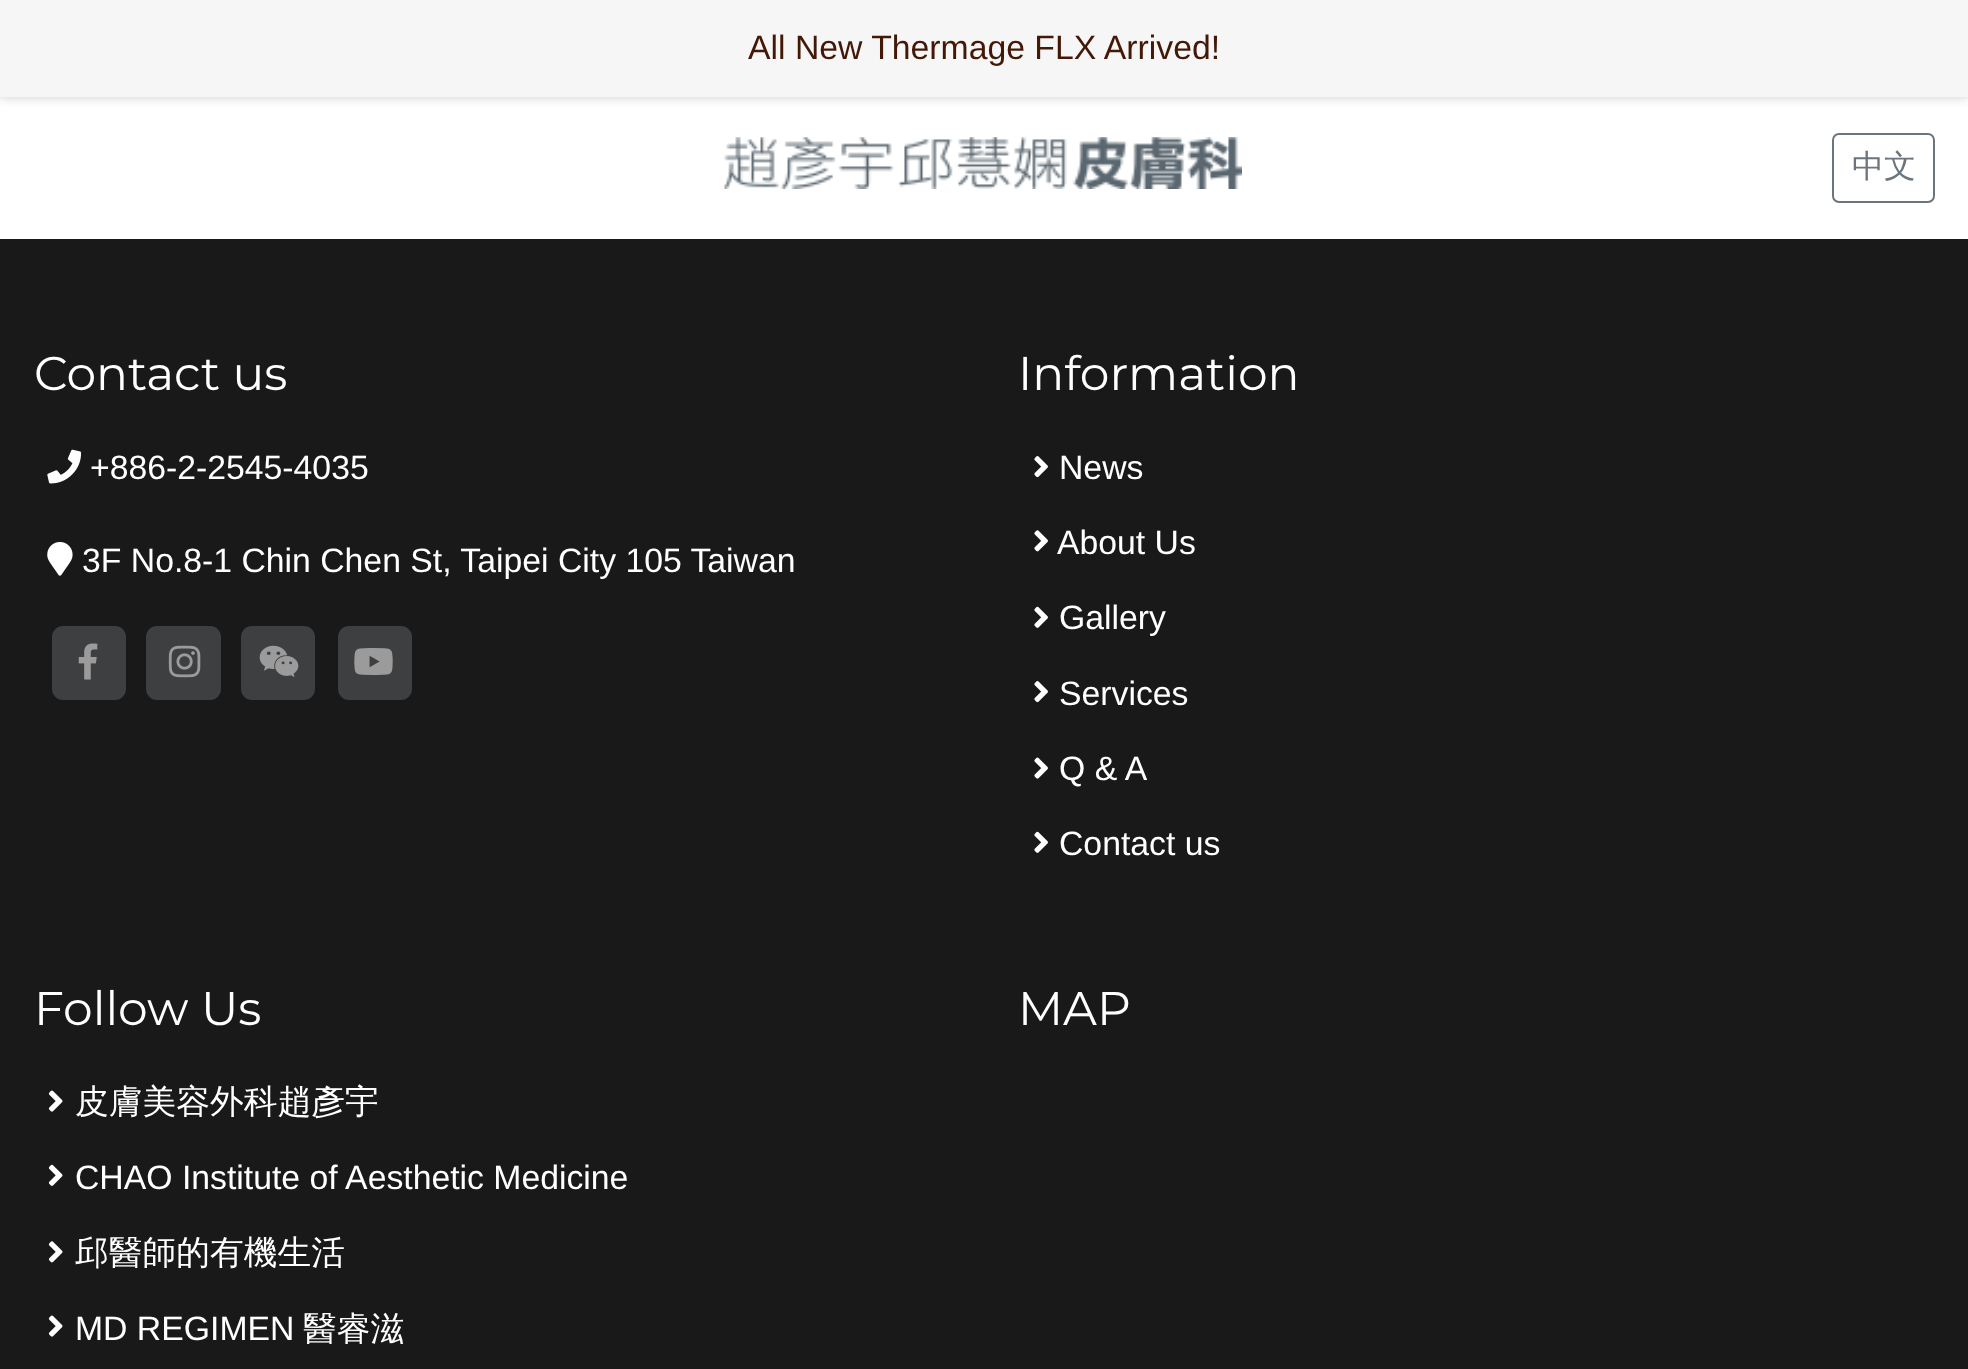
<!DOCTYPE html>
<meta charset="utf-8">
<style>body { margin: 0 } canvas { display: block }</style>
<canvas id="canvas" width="1968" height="1369"></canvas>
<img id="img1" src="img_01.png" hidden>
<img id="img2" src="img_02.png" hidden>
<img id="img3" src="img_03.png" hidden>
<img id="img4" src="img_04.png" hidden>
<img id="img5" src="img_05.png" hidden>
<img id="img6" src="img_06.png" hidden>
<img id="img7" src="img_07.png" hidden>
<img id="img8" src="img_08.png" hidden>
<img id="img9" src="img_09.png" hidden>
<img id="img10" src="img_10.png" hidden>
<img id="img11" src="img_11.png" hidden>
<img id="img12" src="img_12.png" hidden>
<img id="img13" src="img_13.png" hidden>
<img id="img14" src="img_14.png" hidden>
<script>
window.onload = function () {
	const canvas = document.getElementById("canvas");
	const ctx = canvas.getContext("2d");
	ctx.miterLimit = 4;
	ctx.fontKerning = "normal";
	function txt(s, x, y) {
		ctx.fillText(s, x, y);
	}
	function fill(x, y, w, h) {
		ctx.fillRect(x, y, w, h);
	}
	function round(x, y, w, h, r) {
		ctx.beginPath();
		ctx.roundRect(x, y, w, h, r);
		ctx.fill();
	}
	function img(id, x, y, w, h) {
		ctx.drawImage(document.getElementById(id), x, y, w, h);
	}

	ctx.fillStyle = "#FFFFFF";
	fill(0, 0, 1968, 1369);
	ctx.fillStyle = "rgba(0, 0, 0, 0.2)";
	ctx.filter = "blur(5.5px)";
	ctx.beginPath();
	ctx.rect(0, 0, 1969, 97);
	ctx.fill();
	ctx.filter = "none";
	ctx.fillStyle = "#F6F6F6";
	fill(0, 0, 1968, 97);
	img("img1", 724, 137, 518, 52);
	ctx.beginPath();
	ctx.roundRect(1833, 134, 101, 68, 6);
	ctx.strokeStyle = "#6C757D";
	ctx.lineWidth = 2;
	ctx.stroke();
	ctx.fillStyle = "#191919";
	fill(0, 239, 1968, 1130);
	img("img2", 47, 449, 35, 35);
	img("img3", 47, 542, 26, 34);
	ctx.fillStyle = "#3E3F40";
	round(52, 626, 74, 74, 11);
	img("img4", 78, 643, 20, 37);
	round(146, 626, 75, 74, 11);
	img("img5", 168, 645, 33, 33);
	round(241, 626, 74, 74, 11);
	img("img6", 259, 645, 40, 33);
	round(338, 626, 74, 74, 11);
	img("img7", 354, 648, 39, 27);
	img("img8", 1034, 456, 14, 22);
	img("img9", 1034, 530, 14, 22);
	img("img10", 1034, 606, 14, 22);
	img("img8", 1034, 681, 14, 22);
	img("img11", 1034, 757, 14, 22);
	img("img10", 1034, 831, 14, 22);
	img("img12", 48, 1090, 15, 22);
	img("img13", 48, 1164, 15, 22);
	img("img14", 48, 1241, 15, 22);
	img("img12", 48, 1315, 15, 22);
	ctx.font = "33.75px Liberation Sans";
	ctx.fillStyle = "#431807";
	txt("All New Thermage FLX Arrived!", 748, 59);
	ctx.font = "500 32px WenQuanYi Zen Hei";
	ctx.fillStyle = "#6C757D";
	txt("中文", 1852, 177);
	ctx.font = "47.25px Montserrat";
	ctx.fillStyle = "#FFFFFF";
	txt("Contact us", 34, 390);
	ctx.font = "33.75px Liberation Sans";
	txt("+886-2-2545-4035", 90, 479);
	txt("3F No.8-1 Chin Chen St, Taipei City 105 Taiwan", 82, 572);
	ctx.font = "47.25px Montserrat";
	txt("Information", 1018, 390);
	ctx.font = "33.75px Liberation Sans";
	txt("News", 1059, 479);
	txt("About Us", 1057, 554);
	txt("Gallery", 1059, 629);
	txt("Services", 1059, 705);
	txt("Q & A", 1059, 780);
	txt("Contact us", 1059, 855);
	ctx.font = "47.25px Montserrat";
	txt("Follow Us", 34, 1025);
	ctx.font = "500 33.75px WenQuanYi Zen Hei";
	txt("皮膚美容外科趙彥宇", 75, 1113);
	ctx.font = "33.75px Liberation Sans";
	txt("CHAO Institute of Aesthetic Medicine", 75, 1189);
	ctx.font = "500 33.75px WenQuanYi Zen Hei";
	txt("邱醫師的有機生活", 75, 1264);
	ctx.font = "33.75px Liberation Sans";
	txt("MD REGIMEN", 75, 1340);
	ctx.font = "500 33.75px WenQuanYi Zen Hei";
	txt("醫睿滋", 303, 1340);
	ctx.font = "47.25px Montserrat";
	txt("MAP", 1018, 1025);
};
</script>
